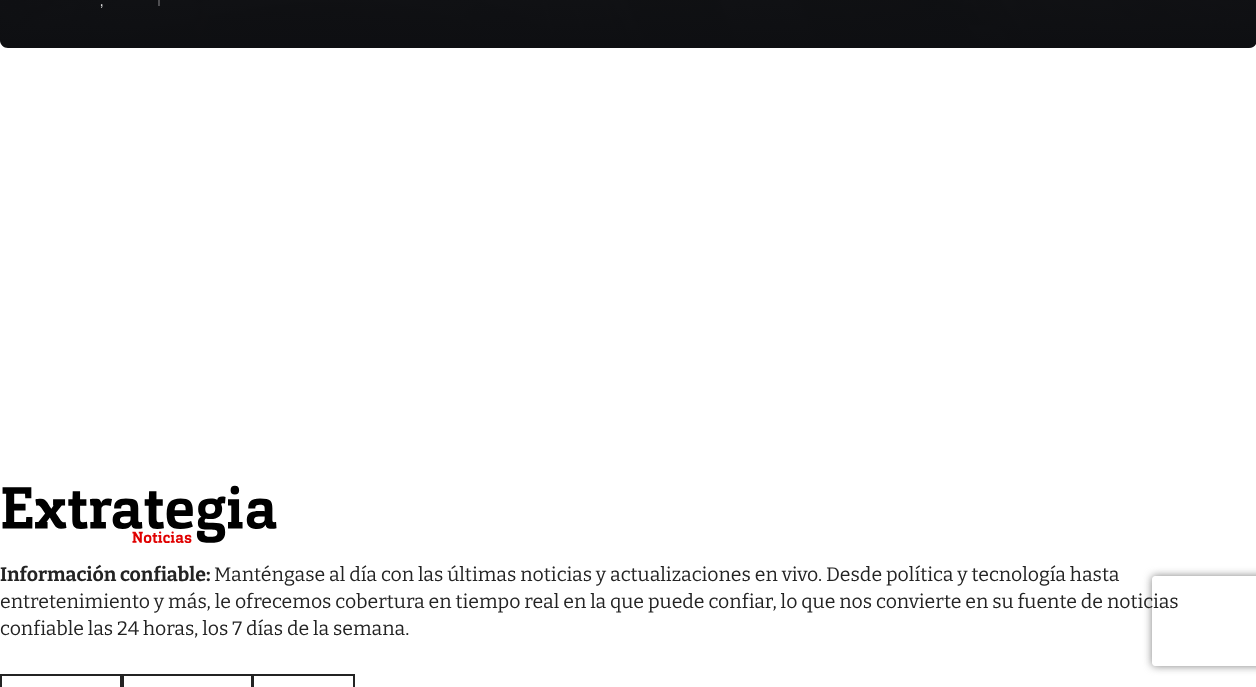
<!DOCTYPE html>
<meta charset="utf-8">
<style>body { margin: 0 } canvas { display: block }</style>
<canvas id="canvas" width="1256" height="687"></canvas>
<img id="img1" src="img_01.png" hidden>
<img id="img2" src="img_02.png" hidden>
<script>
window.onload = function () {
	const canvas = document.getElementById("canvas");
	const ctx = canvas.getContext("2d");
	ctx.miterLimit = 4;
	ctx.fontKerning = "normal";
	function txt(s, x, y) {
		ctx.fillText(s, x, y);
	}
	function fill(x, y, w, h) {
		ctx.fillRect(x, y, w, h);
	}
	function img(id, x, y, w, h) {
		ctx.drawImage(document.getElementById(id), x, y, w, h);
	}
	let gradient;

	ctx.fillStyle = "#FFFFFF";
	fill(0, 0, 1256, 687);
	img("img1", 0, 0, 1256, 48);
	gradient = ctx.createLinearGradient(629, 48, 629, -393);
	gradient.addColorStop(0, "#0E0F12");
	gradient.addColorStop(0.49, "rgba(14, 15, 18, 0.95)");
	gradient.addColorStop(1, "rgba(14, 15, 18, 0)");
	ctx.fillStyle = gradient;
	ctx.beginPath();
	ctx.moveTo(0, -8);
	ctx.lineTo(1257, -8);
	ctx.lineTo(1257, 40);
	ctx.bezierCurveTo(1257, 44.5, 1253.5, 48, 1249, 48);
	ctx.lineTo(8, 48);
	ctx.bezierCurveTo(3.5, 48, 0, 44.5, 0, 40);
	ctx.closePath();
	ctx.fill();
	ctx.fillStyle = "#4E4E51";
	fill(158, 0, 2, 6);
	img("img2", 2, 485, 275, 58);
	ctx.fillStyle = "#232323";
	fill(0, 674, 120, 2);
	fill(0, 674, 2, 13);
	fill(120, 674, 2, 13);
	fill(122, 674, 129, 2);
	fill(122, 674, 2, 13);
	fill(251, 674, 1, 13);
	fill(252, 674, 101, 2);
	fill(252, 674, 2, 13);
	fill(353, 674, 2, 13);
	ctx.save();
	ctx.beginPath();
	ctx.moveTo(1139, 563);
	ctx.lineTo(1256, 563);
	ctx.lineTo(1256, 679);
	ctx.lineTo(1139, 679);
	ctx.closePath();
	ctx.moveTo(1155, 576);
	ctx.lineTo(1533, 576);
	ctx.bezierCurveTo(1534.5, 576, 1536, 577.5, 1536, 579);
	ctx.lineTo(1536, 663);
	ctx.bezierCurveTo(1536, 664.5, 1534.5, 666, 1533, 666);
	ctx.lineTo(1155, 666);
	ctx.bezierCurveTo(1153.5, 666, 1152, 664.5, 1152, 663);
	ctx.lineTo(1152, 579);
	ctx.bezierCurveTo(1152, 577.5, 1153.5, 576, 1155, 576);
	ctx.closePath();
	ctx.clip("evenodd");
	ctx.fillStyle = "#808080";
	ctx.filter = "blur(4px)";
	ctx.beginPath();
	ctx.roundRect(1152, 576, 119, 90, 3);
	ctx.fill();
	ctx.filter = "none";
	ctx.restore();
	ctx.font = "16px Manrope";
	ctx.fillStyle = "#DDDDDD";
	txt(",", 100, 6);
	ctx.font = "100 19.5px Bitter";
	ctx.fillStyle = "#232323";
	txt("Información confiable:", 0, 581);
	ctx.font = "100 19.5px 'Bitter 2'";
	txt("Manténgase al día con las últimas noticias y actualizaciones en vivo. Desde política y tecnología hasta", 214, 581);
	txt("entretenimiento y más, le ofrecemos cobertura en tiempo real en la que puede confiar, lo que nos convierte en su fuente de noticias", 0, 608);
	txt("confiable las 24 horas, los 7 días de la semana.", 0, 635);
};
</script>
